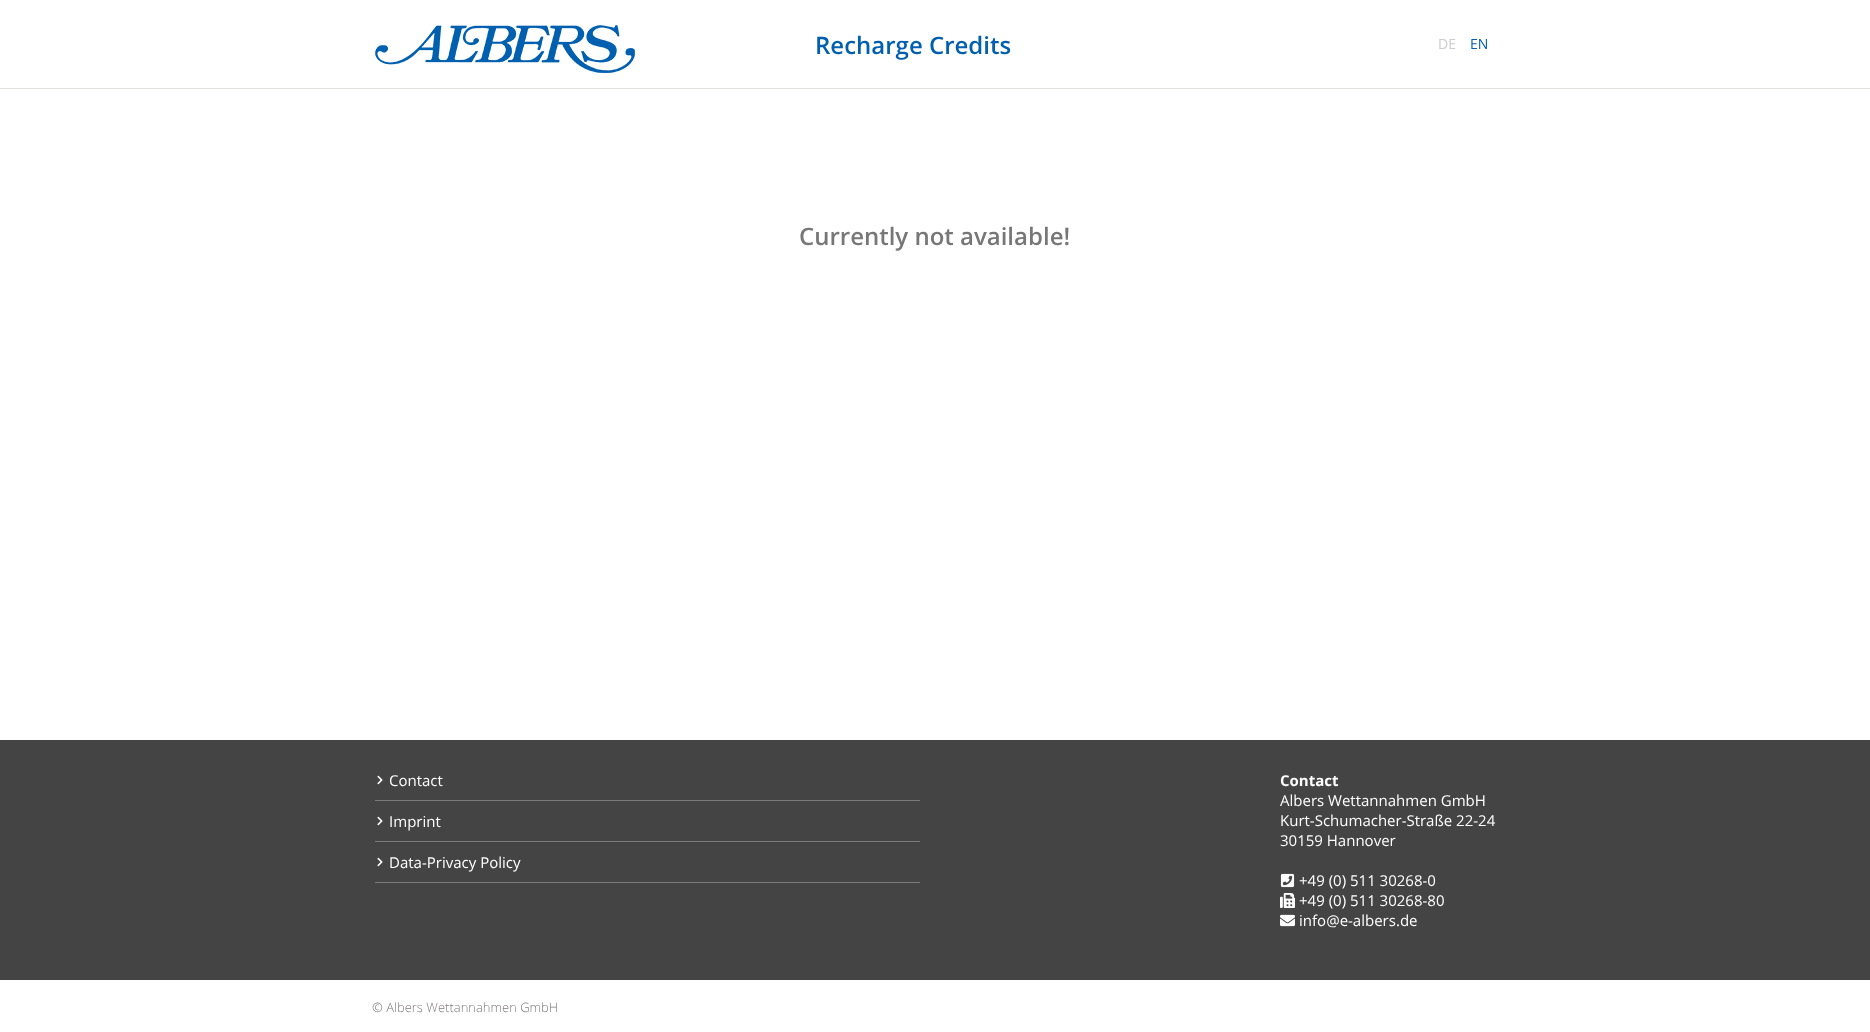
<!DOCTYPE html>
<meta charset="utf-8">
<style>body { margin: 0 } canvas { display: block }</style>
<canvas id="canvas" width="1870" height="1032"></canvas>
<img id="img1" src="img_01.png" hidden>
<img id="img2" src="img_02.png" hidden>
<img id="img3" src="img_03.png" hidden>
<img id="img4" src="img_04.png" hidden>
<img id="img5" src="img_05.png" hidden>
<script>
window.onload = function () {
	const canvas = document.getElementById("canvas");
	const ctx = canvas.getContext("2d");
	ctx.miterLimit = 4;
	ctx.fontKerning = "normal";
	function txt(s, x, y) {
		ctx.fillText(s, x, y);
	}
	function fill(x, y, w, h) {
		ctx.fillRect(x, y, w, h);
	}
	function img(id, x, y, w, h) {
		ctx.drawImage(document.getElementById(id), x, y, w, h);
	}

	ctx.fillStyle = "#FFFFFF";
	fill(0, 0, 1870, 1032);
	ctx.fillStyle = "#E3E2DE";
	fill(0, 88, 1870, 1);
	img("img1", 375, 25, 260, 48);
	ctx.fillStyle = "#444444";
	fill(0, 740, 1870, 240);
	ctx.fillStyle = "#7C7C7C";
	fill(375, 800, 545, 1);
	img("img2", 377, 775, 6, 10);
	fill(375, 841, 545, 1);
	img("img2", 377, 816, 6, 10);
	fill(375, 882, 545, 1);
	img("img2", 377, 857, 6, 10);
	img("img3", 1280, 873, 15, 15);
	img("img4", 1280, 893, 15, 15);
	img("img5", 1280, 914, 15, 13);
	ctx.font = "600 24px Open Sans";
	ctx.fillStyle = "#0060AF";
	txt("Recharge Credits", 815, 54);
	ctx.font = "14px Open Sans";
	ctx.fillStyle = "#CCCCCC";
	txt("DE", 1438, 49);
	ctx.fillStyle = "#0060AF";
	txt("EN", 1470, 49);
	ctx.font = "600 24px Open Sans";
	ctx.fillStyle = "#777777";
	txt("Currently not available!", 799, 245);
	ctx.font = "15px Open Sans";
	ctx.fillStyle = "#FFFFFF";
	txt("Contact", 389, 786);
	txt("Imprint", 389, 827);
	txt("Data-Privacy Policy", 389, 868);
	ctx.font = "bold 15px Open Sans";
	txt("Contact", 1280, 786);
	ctx.font = "15px Open Sans";
	txt("Albers Wettannahmen GmbH", 1280, 806);
	txt("Kurt-Schumacher-Straße 22-24", 1280, 826);
	txt("30159 Hannover", 1280, 846);
	txt("+49 (0) 511 30268-0", 1299, 886);
	txt("+49 (0) 511 30268-80", 1299, 906);
	txt("info@e-albers.de", 1299, 926);
	ctx.font = "300 13px Open Sans";
	ctx.fillStyle = "#7F7B7B";
	txt("© Albers Wettannahmen GmbH", 372, 1012);
};
</script>
